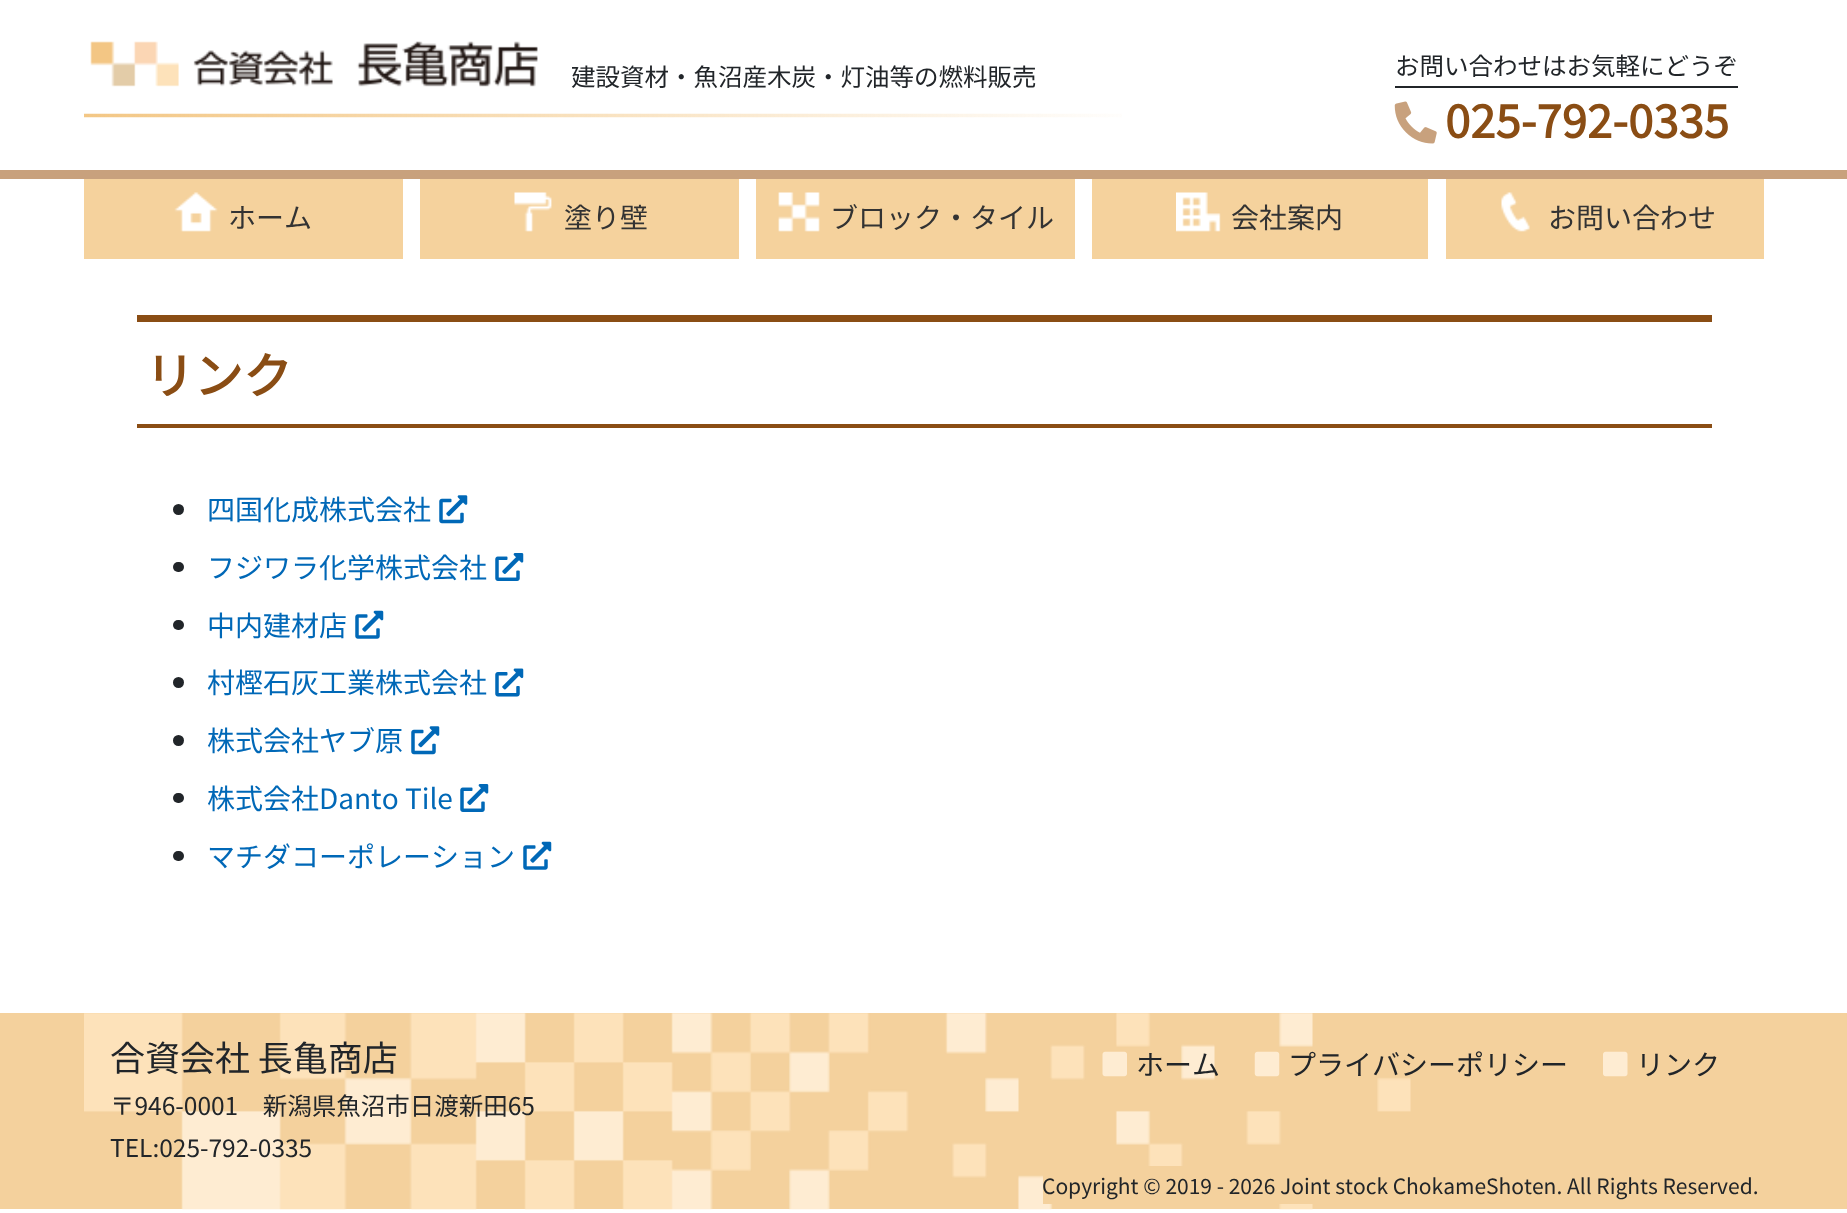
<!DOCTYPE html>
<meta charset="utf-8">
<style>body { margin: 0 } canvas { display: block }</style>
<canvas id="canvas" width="1847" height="1213"></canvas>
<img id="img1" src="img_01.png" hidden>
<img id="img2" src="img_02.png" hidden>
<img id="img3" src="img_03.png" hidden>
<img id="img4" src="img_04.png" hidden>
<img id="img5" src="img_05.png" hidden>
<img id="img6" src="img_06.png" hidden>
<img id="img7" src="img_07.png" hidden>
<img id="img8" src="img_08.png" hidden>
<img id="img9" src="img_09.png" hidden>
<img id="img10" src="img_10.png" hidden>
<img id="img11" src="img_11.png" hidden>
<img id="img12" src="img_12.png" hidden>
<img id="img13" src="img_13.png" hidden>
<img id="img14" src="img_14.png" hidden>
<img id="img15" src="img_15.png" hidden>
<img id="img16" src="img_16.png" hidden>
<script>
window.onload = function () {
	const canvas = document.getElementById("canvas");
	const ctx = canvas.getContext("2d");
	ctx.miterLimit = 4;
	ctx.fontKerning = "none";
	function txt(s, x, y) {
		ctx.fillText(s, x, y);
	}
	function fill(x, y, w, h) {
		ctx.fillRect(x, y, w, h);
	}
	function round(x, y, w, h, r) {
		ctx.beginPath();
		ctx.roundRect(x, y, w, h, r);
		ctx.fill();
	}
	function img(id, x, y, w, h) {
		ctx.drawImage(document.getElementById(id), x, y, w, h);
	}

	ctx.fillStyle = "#FFFFFF";
	fill(0, 0, 1847, 1213);
	img("img1", 84, 113, 1038, 5);
	img("img2", 90, 41, 448, 46);
	ctx.fillStyle = "#212529";
	fill(1395, 86, 343, 2);
	img("img3", 1394, 101, 43, 43);
	ctx.fillStyle = "#C8A17D";
	fill(0, 170, 1847, 9);
	ctx.fillStyle = "#F5D29D";
	fill(84, 179, 319, 80);
	img("img4", 174, 192, 44, 40);
	fill(420, 179, 319, 80);
	img("img5", 514, 192, 38, 40);
	fill(756, 179, 319, 80);
	img("img6", 778, 192, 42, 40);
	fill(1092, 179, 336, 80);
	img("img7", 1176, 192, 45, 40);
	fill(1446, 179, 318, 80);
	img("img8", 1501, 192, 29, 40);
	ctx.fillStyle = "#8A4D14";
	fill(137, 315, 1575, 7);
	fill(137, 424, 1575, 4);
	ctx.fillStyle = "#212529";
	ctx.beginPath();
	ctx.arc(178.5, 509.5, 5.5, 0, Math.PI * 2);
	ctx.fill();
	img("img9", 439, 495, 29, 29);
	round(173, 562, 11, 10, 5);
	img("img10", 495, 553, 29, 28);
	round(173, 620, 11, 10, 5);
	img("img11", 355, 610, 29, 29);
	ctx.beginPath();
	ctx.arc(178.5, 682.5, 5.5, 0, Math.PI * 2);
	ctx.fill();
	img("img12", 495, 668, 29, 29);
	ctx.beginPath();
	ctx.arc(178.5, 740.5, 5.5, 0, Math.PI * 2);
	ctx.fill();
	img("img9", 411, 726, 29, 29);
	round(173, 793, 11, 10, 5);
	img("img10", 460, 784, 29, 28);
	round(173, 851, 11, 10, 5);
	img("img11", 523, 841, 29, 29);
	ctx.fillStyle = "#F4D19D";
	fill(0, 1013, 1847, 196);
	img("img13", 84, 1013, 1327, 197);
	img("img14", 1102, 1051, 25, 26);
	img("img15", 1254, 1051, 26, 26);
	img("img16", 1603, 1051, 25, 26);
	fill(1043, 1166, 270, 38);
	ctx.font = "24.5px Noto Sans CJK JP";
	ctx.fillStyle = "#212529";
	txt("建設資材・魚沼産木炭・灯油等の燃料販売", 571, 86);
	txt("お問い合わせはお気軽にどうぞ", 1395, 75);
	ctx.font = "bold 45.5px Noto Sans CJK JP";
	ctx.fillStyle = "#8A4D14";
	txt("025-792-0335", 1445, 138);
	ctx.font = "28px Noto Sans CJK JP";
	ctx.fillStyle = "#333333";
	txt("ホーム", 228, 228);
	txt("塗り壁", 564, 228);
	txt("ブロック・タイル", 830, 228);
	txt("会社案内", 1231, 228);
	txt("お問い合わせ", 1548, 228);
	ctx.font = "bold 49px Noto Sans CJK JP";
	ctx.fillStyle = "#8A4D14";
	txt("リンク", 145, 394);
	ctx.font = "28px Noto Sans CJK JP";
	ctx.fillStyle = "#0068B7";
	txt("四国化成株式会社", 207, 520);
	txt("フジワラ化学株式会社", 207, 578);
	txt("中内建材店", 207, 636);
	txt("村樫石灰工業株式会社", 207, 693);
	txt("株式会社ヤブ原", 207, 751);
	txt("株式会社Danto Tile", 207, 809);
	txt("マチダコーポレーション", 207, 867);
	ctx.font = "35px Noto Sans CJK JP";
	ctx.fillStyle = "#212529";
	txt("合資会社 長亀商店", 110, 1071);
	ctx.font = "24.5px Noto Sans CJK JP";
	txt("〒946-0001　新潟県魚沼市日渡新田65", 110, 1115);
	txt("TEL:025-792-0335", 110, 1157);
	ctx.font = "28px Noto Sans CJK JP";
	txt("ホーム", 1136, 1075);
	txt("プライバシーポリシー", 1288, 1075);
	txt("リンク", 1636, 1075);
	ctx.font = "21px Noto Sans CJK JP";
	txt("Copyright © 2019 - 2026 Joint stock ChokameShoten. All Rights Reserved.", 1042, 1194);
};
</script>
